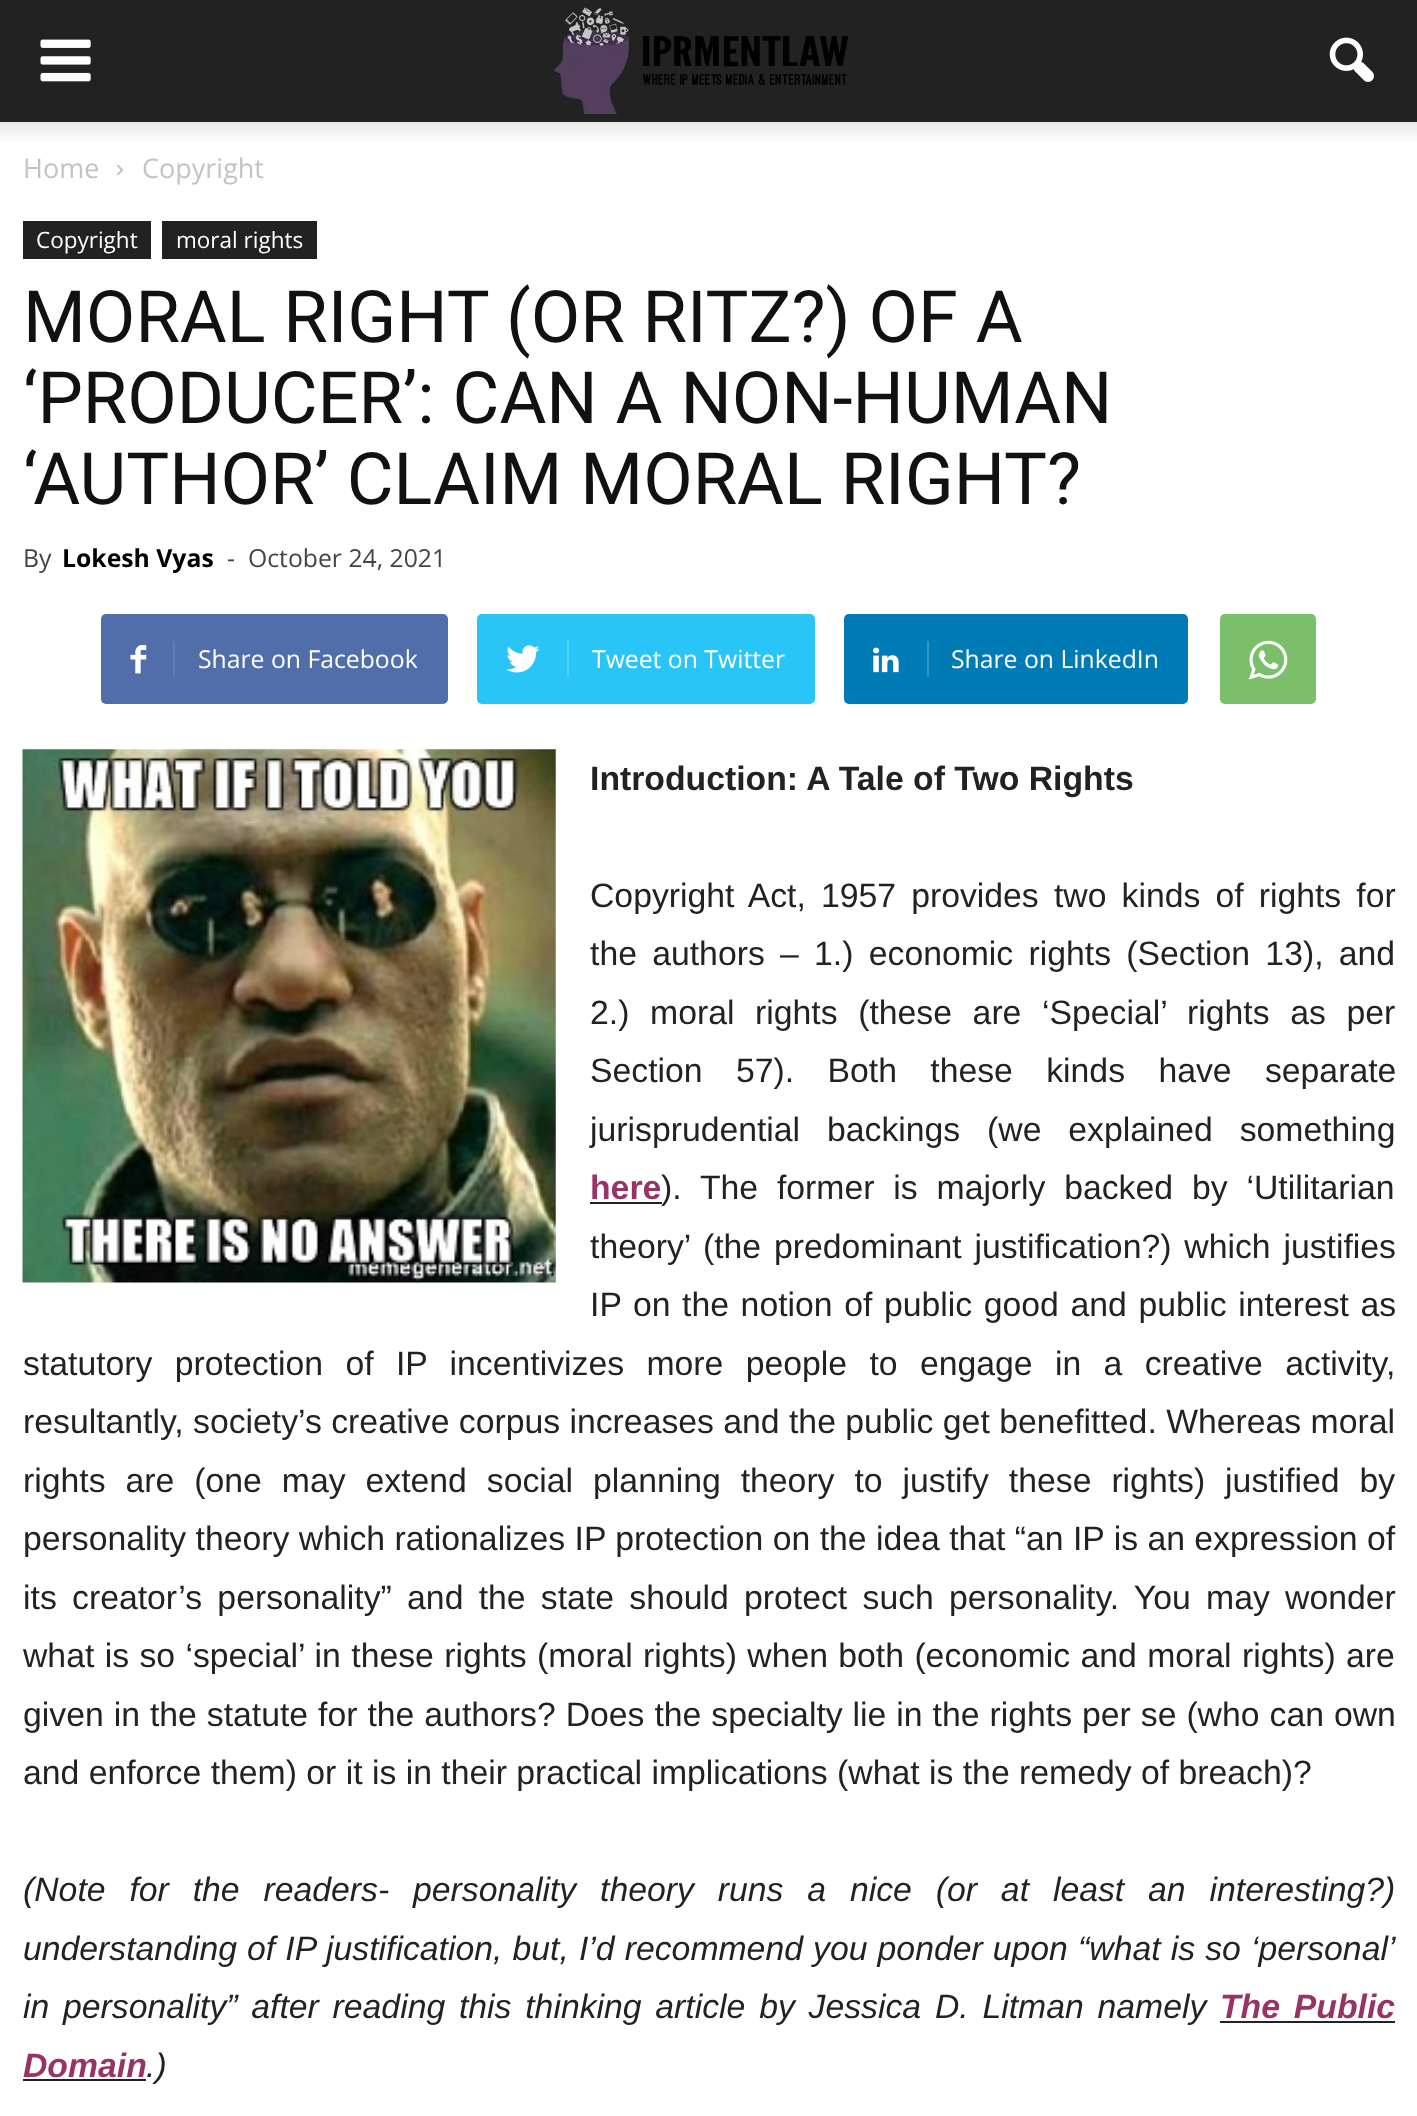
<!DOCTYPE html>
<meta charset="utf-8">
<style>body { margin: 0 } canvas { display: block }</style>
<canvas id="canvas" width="1417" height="2116"></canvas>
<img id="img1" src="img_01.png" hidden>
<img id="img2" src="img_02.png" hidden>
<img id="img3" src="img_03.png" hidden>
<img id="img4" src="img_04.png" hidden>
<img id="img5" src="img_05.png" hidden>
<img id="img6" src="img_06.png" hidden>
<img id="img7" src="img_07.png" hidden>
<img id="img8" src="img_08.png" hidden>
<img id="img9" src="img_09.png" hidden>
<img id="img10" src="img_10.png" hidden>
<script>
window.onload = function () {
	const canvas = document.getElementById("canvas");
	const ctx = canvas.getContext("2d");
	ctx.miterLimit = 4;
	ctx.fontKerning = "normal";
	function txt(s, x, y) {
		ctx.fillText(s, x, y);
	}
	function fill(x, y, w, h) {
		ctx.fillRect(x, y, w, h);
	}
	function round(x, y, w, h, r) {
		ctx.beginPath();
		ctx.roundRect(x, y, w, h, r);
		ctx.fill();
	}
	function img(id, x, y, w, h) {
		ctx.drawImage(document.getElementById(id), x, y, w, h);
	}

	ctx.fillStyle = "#FFFFFF";
	fill(0, 0, 1417, 2116);
	ctx.fillStyle = "#222222";
	fill(0, 0, 1417, 122);
	img("img1", 40, 39, 51, 43);
	img("img2", 554, 7, 294, 107);
	img("img3", 1329, 37, 45, 45);
	img("img4", 0, 122, 1417, 19);
	img("img5", 117, 164, 6, 12);
	fill(23, 221, 128, 38);
	fill(162, 221, 155, 38);
	ctx.fillStyle = "#516EAB";
	round(101, 614, 347, 90, 5);
	img("img6", 130, 645, 17, 29);
	ctx.fillStyle = "#627DB3";
	fill(173, 641, 2, 36);
	ctx.fillStyle = "#29C5F6";
	round(477, 614, 338, 90, 5);
	img("img7", 506, 645, 34, 28);
	ctx.fillStyle = "#54D1F8";
	fill(567, 641, 2, 36);
	ctx.fillStyle = "#007BB6";
	round(844, 614, 344, 90, 5);
	img("img8", 873, 647, 26, 26);
	ctx.fillStyle = "#3395C5";
	fill(927, 641, 2, 36);
	ctx.fillStyle = "#7BBF6A";
	round(1220, 614, 96, 90, 5);
	img("img9", 1248, 640, 40, 40);
	img("img10", 22, 749, 534, 534);
	ctx.fillStyle = "#222222";
	fill(590, 1202, 72, 2);
	fill(1220, 2021, 175, 2);
	fill(23, 2079, 123, 2);
	ctx.font = "27px Open Sans";
	ctx.fillStyle = "#C3C3C3";
	txt("Home", 23, 178);
	txt("Copyright", 142, 178);
	ctx.font = "22.5px Open Sans";
	ctx.fillStyle = "#FFFFFF";
	txt("Copyright", 36, 248);
	txt("moral rights", 176, 248);
	ctx.font = "72px Roboto";
	ctx.fillStyle = "#111111";
	txt("MORAL RIGHT (OR RITZ?) OF A", 23, 342);
	txt("‘PRODUCER’: CAN A NON-HUMAN", 23, 423);
	txt("‘AUTHOR’ CLAIM MORAL RIGHT?", 23, 504);
	ctx.font = "24.75px Open Sans";
	ctx.fillStyle = "#444444";
	txt("By", 23, 567);
	ctx.font = "bold 24.75px Open Sans";
	ctx.fillStyle = "#000000";
	txt("Lokesh Vyas", 62, 567);
	ctx.font = "24.75px Open Sans";
	ctx.fillStyle = "#444444";
	txt("-", 227, 567);
	txt("October 24, 2021", 248, 567);
	ctx.fillStyle = "#FFFFFF";
	txt("Share on Facebook", 198, 668);
	txt("Tweet on Twitter", 592, 668);
	txt("Share on LinkedIn", 951, 668);
	ctx.font = "bold 33.75px Liberation Sans";
	ctx.fillStyle = "#222222";
	txt("Introduction: A Tale of Two Rights", 590, 790);
	ctx.wordSpacing = "5.75px";
	ctx.font = "33.75px Liberation Sans";
	txt("Copyright Act, 1957 provides two kinds of rights for", 590, 907);
	ctx.wordSpacing = "5.9px";
	txt("the authors – 1.) economic rights (Section 13), and", 590, 965);
	ctx.wordSpacing = "11.25px";
	txt("2.) moral rights (these are ‘Special’ rights as per", 590, 1024);
	ctx.wordSpacing = "24px";
	txt("Section 57). Both these kinds have separate", 590, 1082);
	ctx.wordSpacing = "17.5px";
	txt("jurisprudential backings (we explained something", 590, 1141);
	ctx.wordSpacing = "0px";
	ctx.font = "bold 33.75px Liberation Sans";
	ctx.fillStyle = "#993366";
	txt("here", 590, 1199);
	ctx.wordSpacing = "9.5px";
	ctx.font = "33.75px Liberation Sans";
	ctx.fillStyle = "#222222";
	txt("). The former is majorly backed by ‘Utilitarian", 661, 1199);
	ctx.wordSpacing = "3.5px";
	txt("theory’ (the predominant justification?) which justifies", 590, 1258);
	ctx.wordSpacing = "2.25px";
	txt("IP on the notion of public good and public interest as", 590, 1316);
	ctx.wordSpacing = "13px";
	txt("statutory protection of IP incentivizes more people to engage in a creative activity,", 23, 1375);
	ctx.wordSpacing = "0px";
	txt("resultantly, society’s creative corpus increases and the public get benefitted. Whereas moral", 23, 1433);
	ctx.wordSpacing = "10.6px";
	txt("rights are (one may extend social planning theory to justify these rights) justified by", 23, 1492);
	ctx.wordSpacing = "0px";
	txt("personality theory which rationalizes IP protection on the idea that “an IP is an expression of", 23, 1550);
	ctx.wordSpacing = "5.9px";
	txt("its creator’s personality” and the state should protect such personality. You may wonder", 23, 1609);
	ctx.wordSpacing = "1px";
	txt("what is so ‘special’ in these rights (moral rights) when both (economic and moral rights) are", 23, 1667);
	ctx.wordSpacing = "0.6px";
	txt("given in the statute for the authors? Does the specialty lie in the rights per se (who can own", 23, 1726);
	ctx.wordSpacing = "0px";
	txt("and enforce them) or it is in their practical implications (what is the remedy of breach)?", 23, 1784);
	ctx.wordSpacing = "14.5px";
	ctx.font = "italic 33.75px Liberation Sans";
	txt("(Note for the readers- personality theory runs a nice (or at least an interesting?)", 23, 1901);
	ctx.wordSpacing = "0.75px";
	txt("understanding of IP justification, but, I’d recommend you ponder upon “what is so ‘personal’", 23, 1960);
	ctx.wordSpacing = "4.4px";
	txt("in personality” after reading this thinking article by Jessica D. Litman namely", 23, 2018);
	ctx.font = "italic bold 33.75px Liberation Sans";
	ctx.fillStyle = "#993366";
	txt("The Public", 1220, 2018);
	ctx.wordSpacing = "0px";
	txt("Domain", 23, 2077);
	ctx.font = "italic 33.75px Liberation Sans";
	ctx.fillStyle = "#222222";
	txt(".)", 146, 2077);
};
</script>
